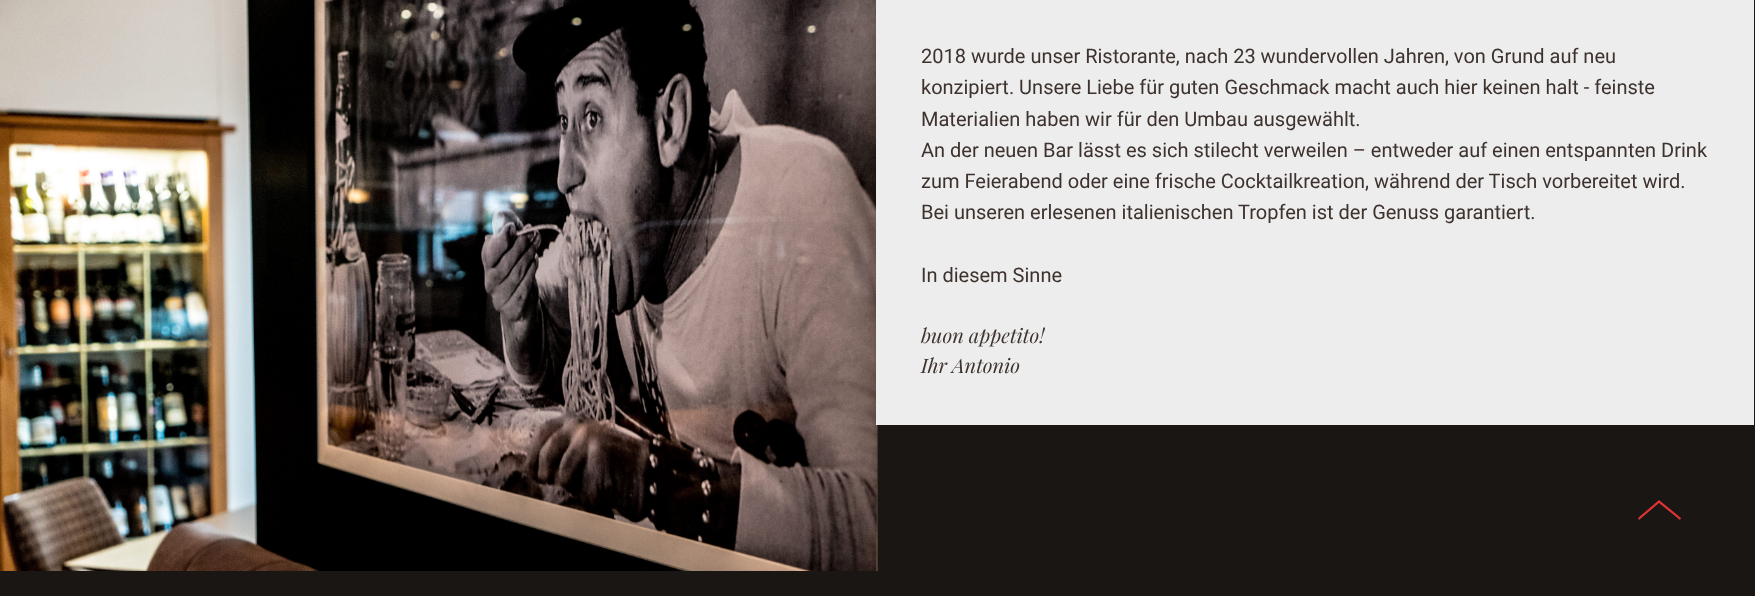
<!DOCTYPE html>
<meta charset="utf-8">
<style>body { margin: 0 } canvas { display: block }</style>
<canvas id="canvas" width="1755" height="596"></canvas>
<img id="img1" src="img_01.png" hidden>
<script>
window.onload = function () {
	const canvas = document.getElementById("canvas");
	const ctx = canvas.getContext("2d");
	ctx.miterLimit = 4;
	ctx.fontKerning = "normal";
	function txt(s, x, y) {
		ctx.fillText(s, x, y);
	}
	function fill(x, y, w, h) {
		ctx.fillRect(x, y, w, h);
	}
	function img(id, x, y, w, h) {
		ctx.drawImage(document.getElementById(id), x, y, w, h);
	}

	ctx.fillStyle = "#191613";
	fill(0, 0, 1755, 596);
	img("img1", 0, 0, 878, 571);
	ctx.fillStyle = "#EDEDED";
	fill(876, 0, 878, 425);
	ctx.fillStyle = "#DD3333";
	ctx.beginPath();
	ctx.moveTo(1681, 518);
	ctx.lineTo(1680, 520);
	ctx.lineTo(1659, 503);
	ctx.lineTo(1639, 520);
	ctx.lineTo(1638, 518);
	ctx.lineTo(1659, 500);
	ctx.closePath();
	ctx.fill();
	ctx.font = "20px Roboto";
	ctx.fillStyle = "#3D322D";
	txt("2018 wurde unser Ristorante, nach 23 wundervollen Jahren, von Grund auf neu", 921, 63);
	txt("konzipiert. Unsere Liebe für guten Geschmack macht auch hier keinen halt - feinste", 921, 94);
	txt("Materialien haben wir für den Umbau ausgewählt.", 921, 126);
	txt("An der neuen Bar lässt es sich stilecht verweilen – entweder auf einen entspannten Drink", 921, 157);
	txt("zum Feierabend oder eine frische Cocktailkreation, während der Tisch vorbereitet wird.", 921, 188);
	txt("Bei unseren erlesenen italienischen Tropfen ist der Genuss garantiert.", 921, 219);
	txt("In diesem Sinne", 921, 282);
	ctx.font = "italic 20px Playfair Display";
	txt("buon appetito!", 921, 343);
	txt("Ihr Antonio", 921, 373);
};
</script>
